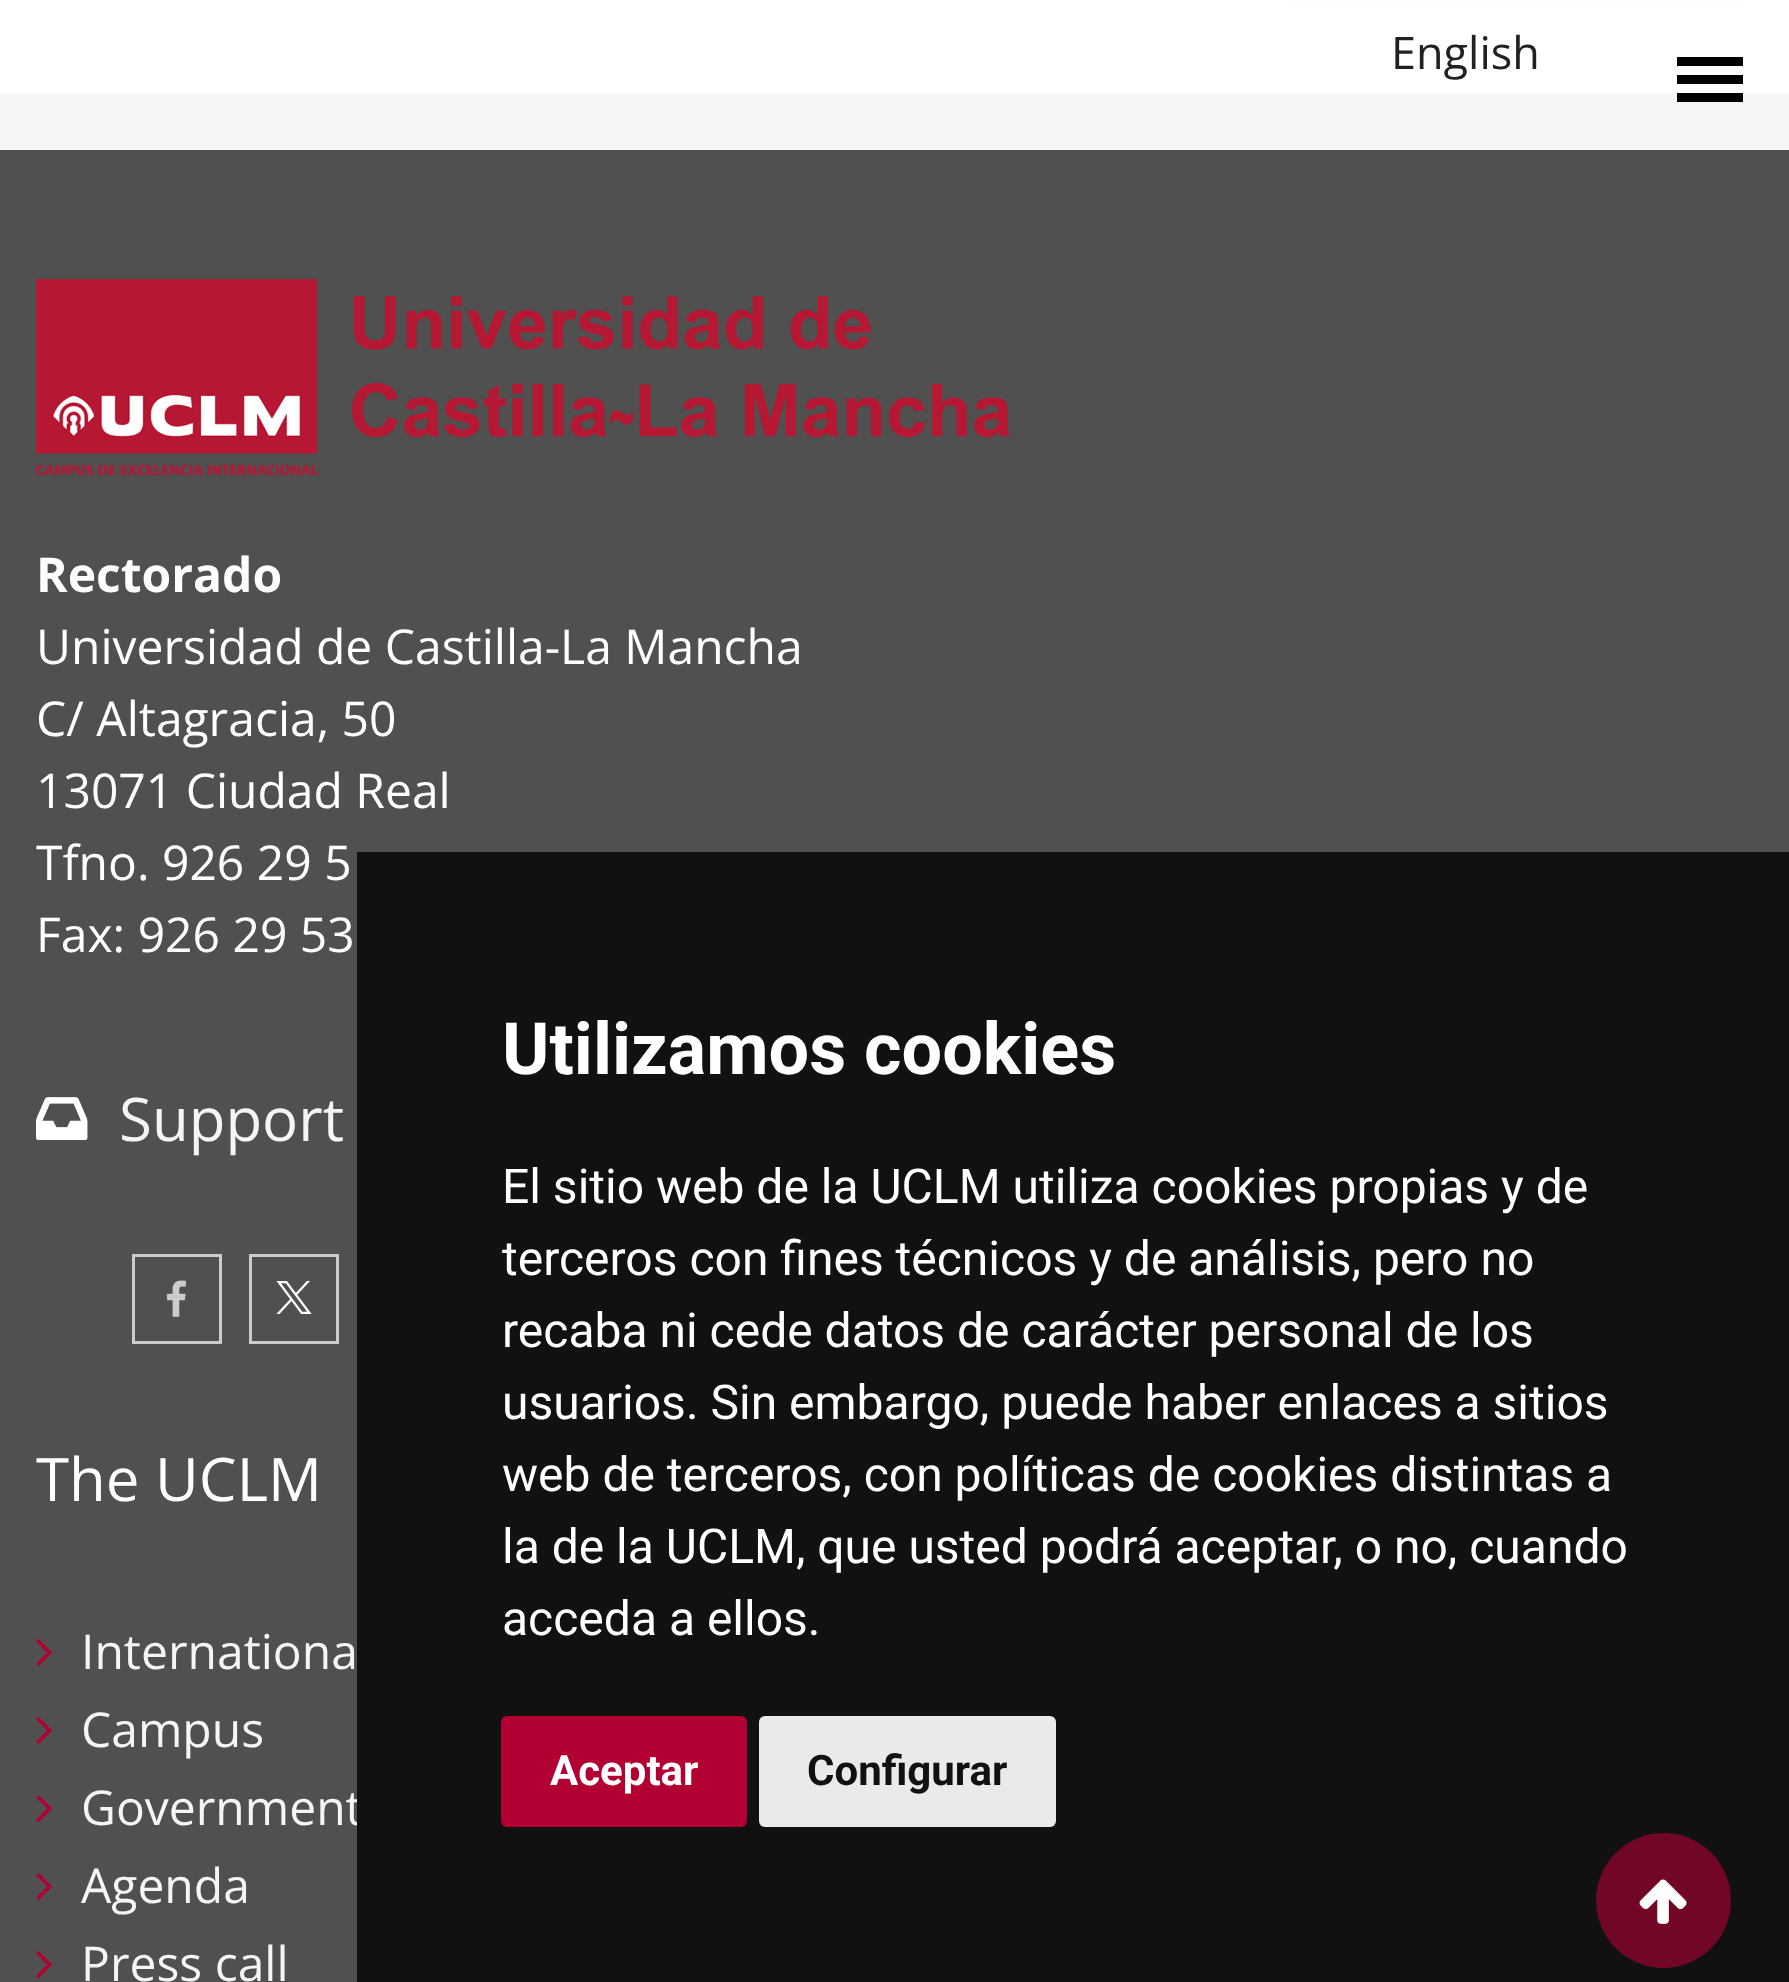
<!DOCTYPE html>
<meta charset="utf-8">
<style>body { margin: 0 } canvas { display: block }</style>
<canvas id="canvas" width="1789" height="1982"></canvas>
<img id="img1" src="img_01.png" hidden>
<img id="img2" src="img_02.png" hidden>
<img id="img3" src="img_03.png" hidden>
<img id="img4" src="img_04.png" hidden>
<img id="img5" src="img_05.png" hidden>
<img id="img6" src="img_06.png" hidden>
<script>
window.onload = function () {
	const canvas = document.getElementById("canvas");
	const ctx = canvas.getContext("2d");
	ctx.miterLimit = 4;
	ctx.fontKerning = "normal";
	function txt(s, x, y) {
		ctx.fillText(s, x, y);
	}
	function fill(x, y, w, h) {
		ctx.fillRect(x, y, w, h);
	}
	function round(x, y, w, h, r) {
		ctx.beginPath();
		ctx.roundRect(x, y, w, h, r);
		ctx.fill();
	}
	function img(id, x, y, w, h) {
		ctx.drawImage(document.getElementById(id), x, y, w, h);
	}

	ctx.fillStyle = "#FFFFFF";
	fill(0, 0, 1789, 1982);
	ctx.beginPath();
	ctx.roundRect(37.5, -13.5, 1716, 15, 10.5);
	ctx.strokeStyle = "#DDDDDD";
	ctx.lineWidth = 3;
	ctx.stroke();
	fill(40, 0, 1247, 3);
	ctx.fillStyle = "#505050";
	fill(0, 93, 1789, 1889);
	ctx.fillStyle = "rgba(255, 255, 255, 0.95)";
	fill(0, 0, 1344, 150);
	fill(1344, 0, 445, 150);
	ctx.fillStyle = "#000000";
	fill(1677, 57, 66, 9);
	fill(1677, 75, 66, 9);
	fill(1677, 93, 66, 9);
	img("img1", 36, 279, 975, 196);
	img("img2", 36, 1097, 52, 43);
	ctx.strokeStyle = "#CCCCCC";
	ctx.strokeRect(133.5, 1255.5, 87, 87);
	img("img3", 167, 1280, 19, 37);
	ctx.strokeRect(250.5, 1255.5, 87, 87);
	img("img4", 276, 1281, 36, 33);
	img("img5", 36, 1639, 16, 27);
	img("img5", 36, 1717, 16, 27);
	img("img5", 36, 1795, 16, 27);
	img("img5", 36, 1873, 16, 27);
	img("img5", 36, 1951, 16, 27);
	ctx.font = "45px Open Sans";
	ctx.fillStyle = "#212121";
	txt("English", 1391, 69);
	ctx.font = "bold 48px Open Sans";
	ctx.fillStyle = "#FFFFFF";
	txt("Rectorado", 36, 592);
	ctx.font = "48px Open Sans";
	txt("Universidad de Castilla-La Mancha", 36, 664);
	txt("C/ Altagracia, 50", 36, 736);
	txt("13071 Ciudad Real", 36, 808);
	txt("Tfno. 926 29 5", 36, 880);
	txt("Fax: 926 29 53", 36, 952);
	ctx.font = "60px Open Sans";
	ctx.fillStyle = "#F5F5F5";
	txt("Support", 119, 1141);
	ctx.fillStyle = "#FFFFFF";
	txt("The UCLM", 36, 1501);
	ctx.font = "48px Open Sans";
	ctx.fillStyle = "#F5F5F5";
	txt("Internationa", 81, 1669);
	txt("Campus", 81, 1747);
	txt("Government", 81, 1825);
	txt("Agenda", 81, 1903);
	txt("Press call", 81, 1981);
	ctx.fillStyle = "#111111";
	fill(357, 852, 1432, 1130);
	ctx.font = "bold 72px Roboto";
	ctx.fillStyle = "#FFFFFF";
	txt("Utilizamos cookies", 502, 1074);
	ctx.font = "48px Roboto";
	txt("El sitio web de la UCLM utiliza cookies propias y de", 502, 1203);
	txt("terceros con fines técnicos y de análisis, pero no", 502, 1275);
	txt("recaba ni cede datos de carácter personal de los", 502, 1347);
	txt("usuarios. Sin embargo, puede haber enlaces a sitios", 502, 1419);
	txt("web de terceros, con políticas de cookies distintas a", 502, 1491);
	txt("la de la UCLM, que usted podrá aceptar, o no, cuando", 502, 1563);
	txt("acceda a ellos.", 502, 1635);
	ctx.fillStyle = "#B30033";
	round(501, 1716, 246, 111, 6);
	ctx.font = "bold 42px Roboto";
	ctx.fillStyle = "#FFFFFF";
	txt("Aceptar", 550, 1785);
	ctx.fillStyle = "#EAEAEA";
	round(759, 1716, 297, 111, 6);
	ctx.fillStyle = "#111111";
	txt("Configurar", 807, 1785);
	ctx.fillStyle = "#720725";
	ctx.beginPath();
	ctx.arc(1663.5, 1900.5, 67.5, 0, Math.PI * 2);
	ctx.fill();
	img("img6", 1639, 1879, 48, 45);
};
</script>
